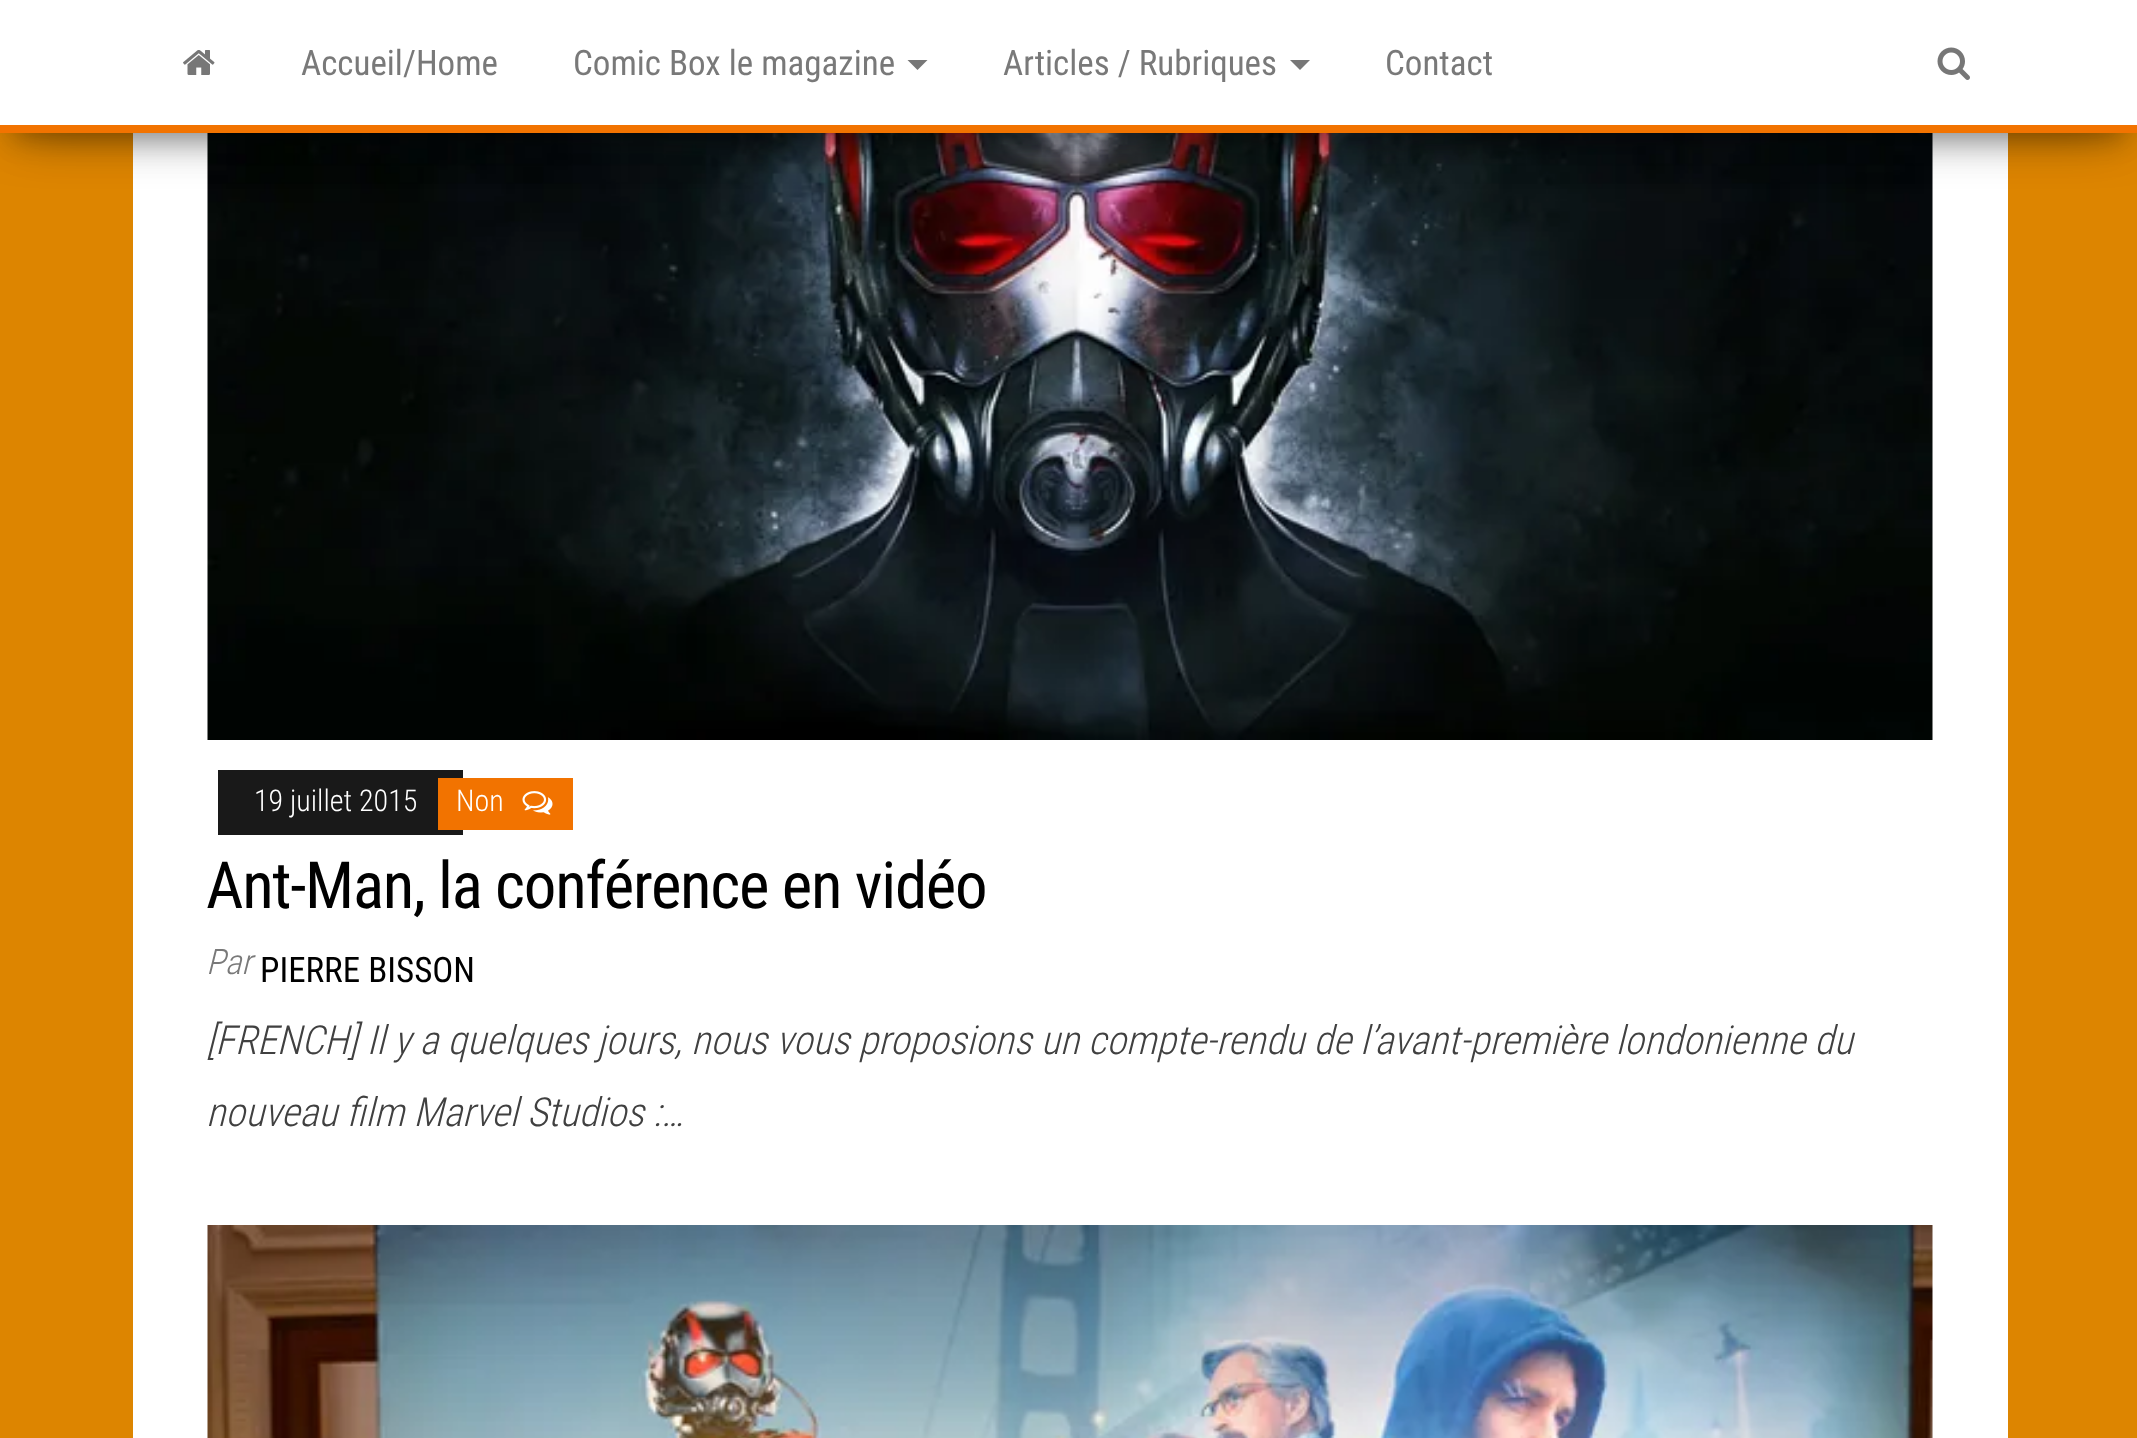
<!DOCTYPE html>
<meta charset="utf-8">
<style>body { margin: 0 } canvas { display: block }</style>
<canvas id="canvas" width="2137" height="1438"></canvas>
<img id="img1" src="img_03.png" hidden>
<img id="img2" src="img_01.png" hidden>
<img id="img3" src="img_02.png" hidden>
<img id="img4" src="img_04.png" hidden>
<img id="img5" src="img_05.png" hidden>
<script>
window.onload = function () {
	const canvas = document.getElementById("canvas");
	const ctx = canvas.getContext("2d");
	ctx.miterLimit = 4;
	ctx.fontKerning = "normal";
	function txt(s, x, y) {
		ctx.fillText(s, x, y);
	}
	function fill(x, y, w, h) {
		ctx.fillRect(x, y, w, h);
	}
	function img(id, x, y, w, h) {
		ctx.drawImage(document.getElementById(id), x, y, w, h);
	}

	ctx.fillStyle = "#DD8500";
	fill(0, 0, 2137, 1438);
	ctx.fillStyle = "#FFFFFF";
	fill(133, 133, 1875, 1305);
	img("img1", 207, 133, 1726, 607);
	ctx.fillStyle = "rgba(0, 0, 0, 0.2)";
	ctx.filter = "blur(12.5px)";
	ctx.beginPath();
	ctx.rect(13, 33, 2112, 107);
	ctx.fill();
	ctx.filter = "none";
	ctx.fillStyle = "rgba(0, 0, 0, 0.12)";
	ctx.filter = "blur(25px)";
	ctx.beginPath();
	ctx.rect(0, 8, 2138, 132);
	ctx.fill();
	ctx.filter = "none";
	ctx.fillStyle = "rgba(0, 0, 0, 0.42)";
	ctx.filter = "blur(25px)";
	ctx.beginPath();
	ctx.rect(30, 55, 2078, 73);
	ctx.fill();
	ctx.filter = "none";
	ctx.fillStyle = "#FFFFFF";
	fill(0, 0, 2137, 125);
	ctx.fillStyle = "#F27300";
	fill(0, 125, 2137, 8);
	img("img2", 183, 50, 32, 25);
	ctx.fillStyle = "#777777";
	ctx.beginPath();
	ctx.moveTo(907.5, 60);
	ctx.lineTo(927.5, 60);
	ctx.lineTo(917.5, 70);
	ctx.closePath();
	ctx.fill();
	ctx.beginPath();
	ctx.moveTo(1290, 60);
	ctx.lineTo(1310, 60);
	ctx.lineTo(1300, 70);
	ctx.closePath();
	ctx.fill();
	img("img3", 1937, 47, 33, 33);
	ctx.fillStyle = "#191919";
	fill(218, 770, 245, 65);
	ctx.fillStyle = "#F27300";
	fill(438, 778, 135, 52);
	img("img4", 522, 791, 31, 24);
	img("img5", 207, 1225, 1726, 213);
	ctx.font = "35px Roboto Condensed";
	ctx.fillStyle = "#797979";
	txt("Accueil/Home", 301, 75);
	txt("Comic Box le magazine", 573, 75);
	txt("Articles / Rubriques", 1003, 75);
	txt("Contact", 1385, 75);
	ctx.font = "300 30px Roboto Condensed";
	ctx.fillStyle = "#FFFFFF";
	txt("19 juillet 2015", 254, 811);
	txt("Non", 456, 811);
	ctx.letterSpacing = "-1.3px";
	ctx.font = "65px Roboto Condensed";
	ctx.fillStyle = "#000000";
	txt("Ant-Man, la conférence en vidéo", 206, 908);
	ctx.letterSpacing = "0px";
	ctx.font = "italic 300 35px Roboto Condensed";
	ctx.fillStyle = "#797979";
	txt("Par", 206, 974);
	ctx.font = "35px Roboto Condensed";
	ctx.fillStyle = "#000000";
	txt("PIERRE BISSON", 260, 982);
	ctx.font = "italic 300 40px Roboto Condensed";
	ctx.fillStyle = "#404040";
	txt("[FRENCH] Il y a quelques jours, nous vous proposions un compte-rendu de l’avant-première londonienne du", 206, 1054);
	txt("nouveau film Marvel Studios :…", 206, 1126);
};
</script>
